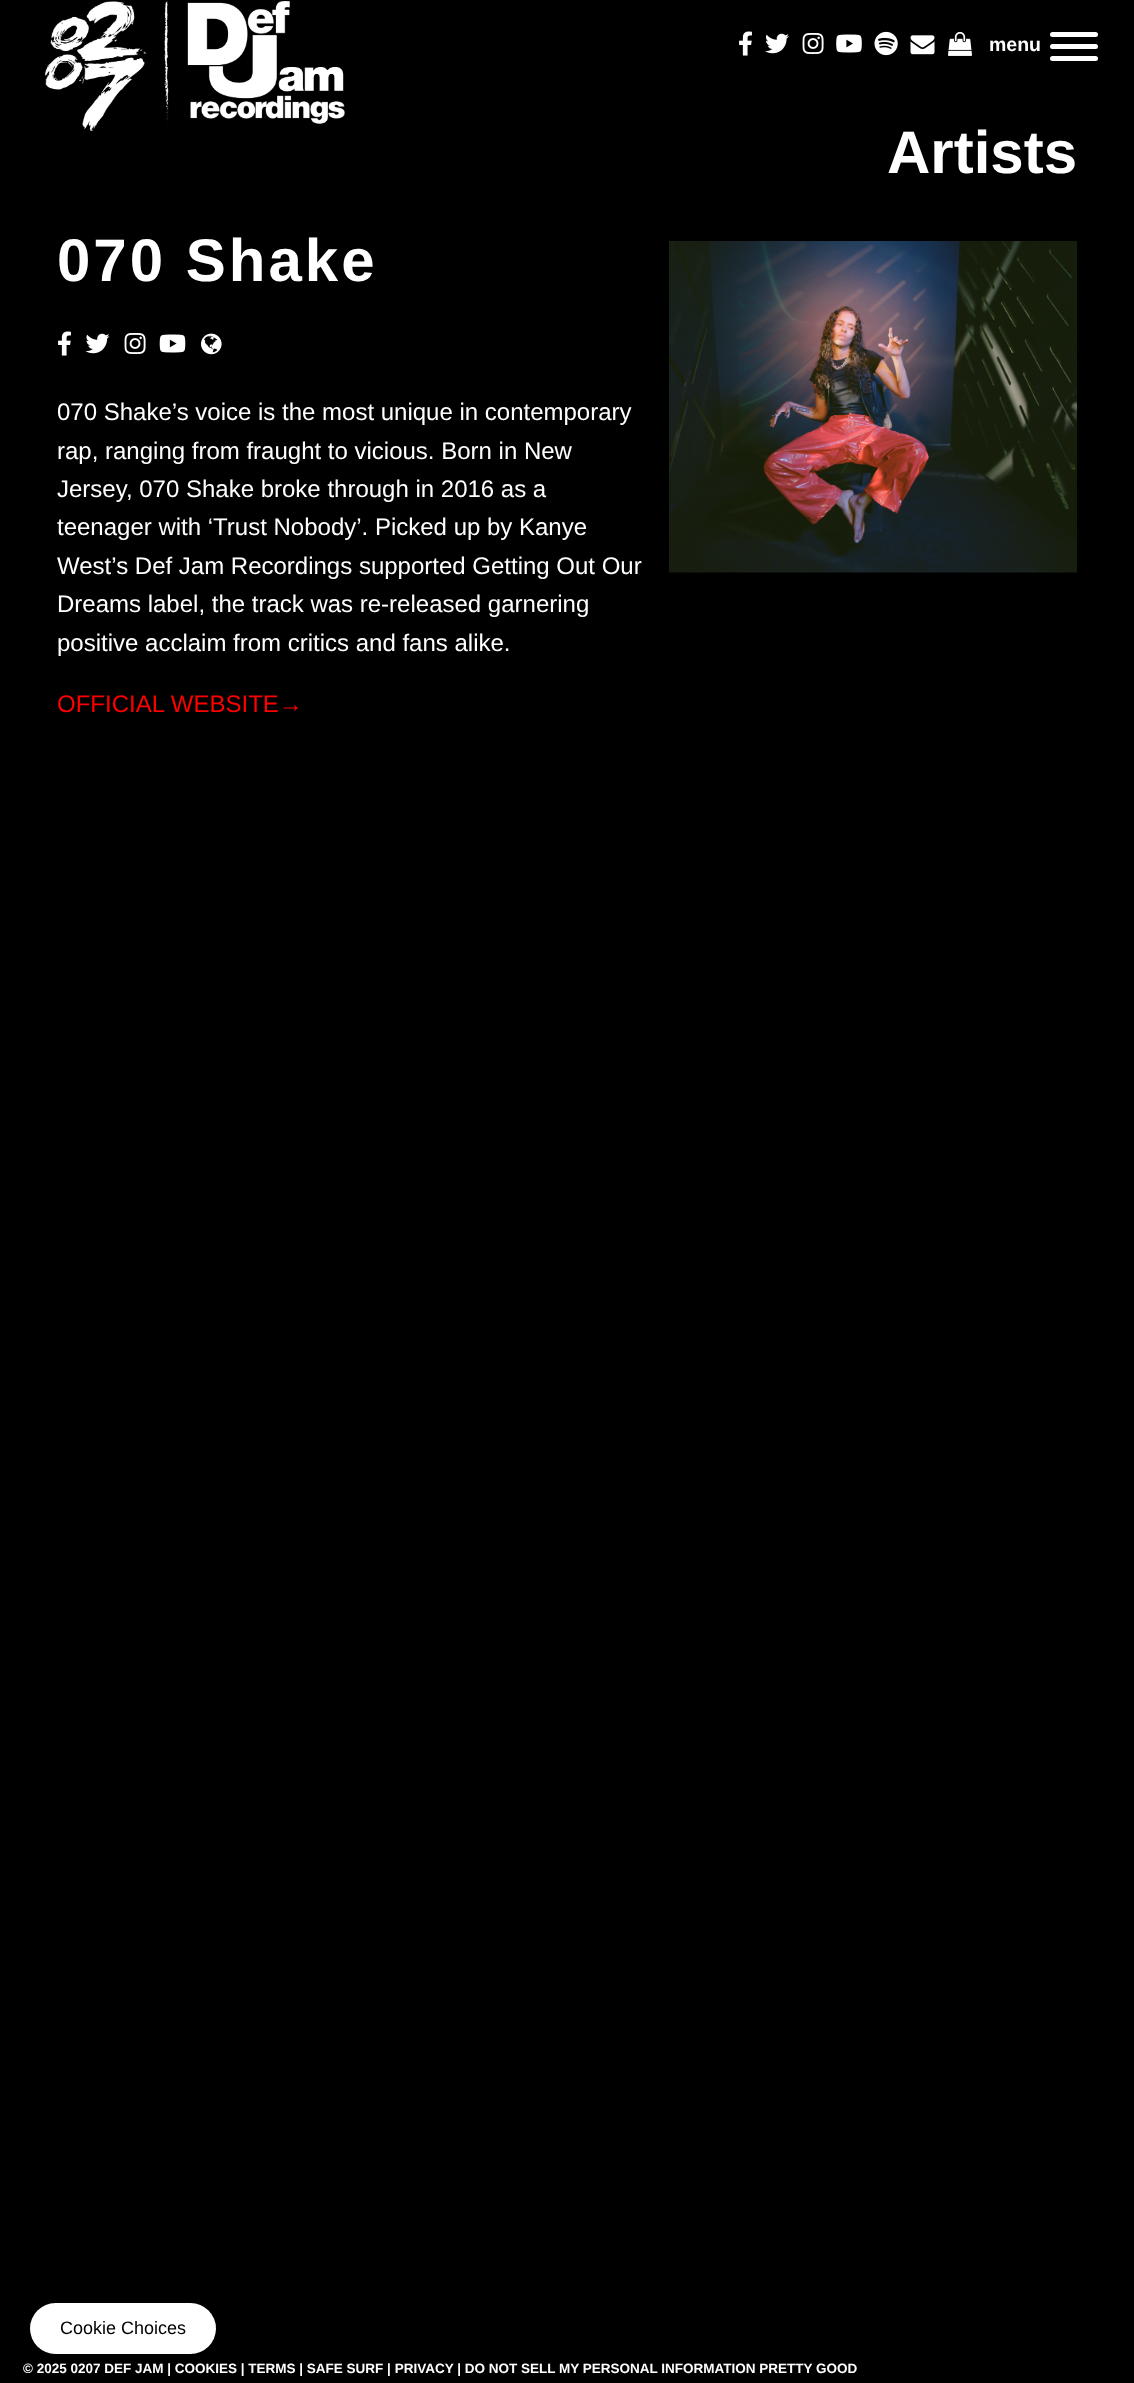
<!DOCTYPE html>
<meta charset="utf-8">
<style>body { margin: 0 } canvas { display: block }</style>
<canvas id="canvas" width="1134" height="2383"></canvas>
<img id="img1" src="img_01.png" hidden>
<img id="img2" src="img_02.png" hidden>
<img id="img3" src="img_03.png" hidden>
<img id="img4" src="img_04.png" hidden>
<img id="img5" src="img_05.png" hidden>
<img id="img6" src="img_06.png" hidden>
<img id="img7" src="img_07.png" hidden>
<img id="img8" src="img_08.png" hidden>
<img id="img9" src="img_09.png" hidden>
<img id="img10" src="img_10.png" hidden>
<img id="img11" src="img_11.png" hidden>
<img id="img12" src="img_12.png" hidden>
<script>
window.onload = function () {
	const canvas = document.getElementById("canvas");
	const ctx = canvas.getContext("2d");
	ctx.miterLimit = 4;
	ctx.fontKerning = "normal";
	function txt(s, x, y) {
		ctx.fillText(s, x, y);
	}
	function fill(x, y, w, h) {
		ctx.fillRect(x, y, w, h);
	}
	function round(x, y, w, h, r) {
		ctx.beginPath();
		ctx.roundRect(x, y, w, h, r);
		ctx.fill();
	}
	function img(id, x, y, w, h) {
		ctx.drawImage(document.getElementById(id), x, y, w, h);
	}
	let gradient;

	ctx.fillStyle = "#000000";
	fill(0, 0, 1134, 2383);
	img("img1", 45, 1, 300, 131);
	img("img2", 739, 31, 13, 25);
	img("img3", 765, 33, 24, 21);
	img("img4", 802, 33, 22, 21);
	img("img5", 836, 34, 26, 19);
	img("img6", 874, 31, 24, 25);
	img("img7", 910, 35, 25, 20);
	img("img8", 948, 31, 24, 25);
	ctx.fillStyle = "#FFFFFF";
	round(1050, 32, 48, 5, 2.5);
	round(1050, 44, 48, 5, 2.5);
	round(1050, 56, 48, 5, 2.5);
	img("img2", 58, 331, 13, 25);
	img("img9", 85, 333, 25, 21);
	img("img4", 124, 333, 22, 21);
	img("img10", 159, 334, 27, 19);
	img("img11", 201, 333, 21, 22);
	img("img12", 669, 241, 408, 332);
	round(30, 2303, 186, 51, 25.5);
	ctx.font = "bold 19.5px Liberation Sans";
	txt("menu", 989, 51);
	ctx.font = "bold 60px Liberation Sans";
	txt("Artists", 887, 173);
	gradient = ctx.createLinearGradient(567, -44, 567, 137);
	gradient.addColorStop(0, "rgba(0, 0, 0, 0.65)");
	gradient.addColorStop(1, "rgba(0, 0, 0, 0)");
	ctx.fillStyle = gradient;
	fill(978, 129, 8, 2);
	ctx.letterSpacing = "3px";
	ctx.fillStyle = "#FFFFFF";
	txt("070 Shake", 57, 281);
	ctx.letterSpacing = "0px";
	ctx.font = "24px Liberation Sans";
	txt("070 Shake’s voice is the most unique in contemporary", 57, 420);
	txt("rap, ranging from fraught to vicious. Born in New", 57, 459);
	txt("Jersey, 070 Shake broke through in 2016 as a", 57, 497);
	txt("teenager with ‘Trust Nobody’. Picked up by Kanye", 57, 535);
	txt("West’s Def Jam Recordings supported Getting Out Our", 57, 574);
	txt("Dreams label, the track was re-released garnering", 57, 612);
	txt("positive acclaim from critics and fans alike.", 57, 651);
	ctx.fillStyle = "#FF0000";
	txt("OFFICIAL WEBSITE→", 57, 712);
	ctx.font = "18px Liberation Sans";
	ctx.fillStyle = "#000000";
	txt("Cookie Choices", 60, 2334);
	ctx.font = "bold 13.5px Liberation Sans";
	ctx.fillStyle = "#FFFFFF";
	txt("© 2025 0207 DEF JAM | COOKIES | TERMS | SAFE SURF | PRIVACY | DO NOT SELL MY PERSONAL INFORMATION PRETTY GOOD", 23, 2373);
};
</script>
